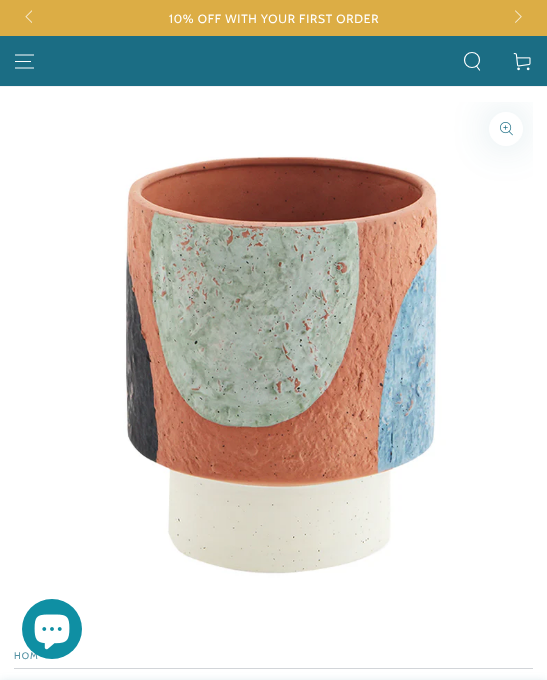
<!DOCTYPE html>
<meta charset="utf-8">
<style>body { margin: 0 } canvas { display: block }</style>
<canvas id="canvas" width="547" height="680"></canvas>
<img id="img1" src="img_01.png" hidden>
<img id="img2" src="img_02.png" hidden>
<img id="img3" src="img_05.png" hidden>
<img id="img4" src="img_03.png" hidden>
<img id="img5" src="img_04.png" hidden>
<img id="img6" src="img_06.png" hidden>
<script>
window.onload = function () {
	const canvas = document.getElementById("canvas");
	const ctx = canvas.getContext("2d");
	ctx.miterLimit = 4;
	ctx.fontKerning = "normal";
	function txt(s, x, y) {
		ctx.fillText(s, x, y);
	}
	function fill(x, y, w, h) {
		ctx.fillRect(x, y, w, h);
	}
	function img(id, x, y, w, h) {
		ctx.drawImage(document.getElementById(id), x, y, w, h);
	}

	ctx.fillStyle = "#FFFFFF";
	fill(0, 0, 547, 680);
	ctx.fillStyle = "#DCAD45";
	fill(0, 0, 547, 36);
	img("img1", 25, 10, 7, 13);
	img("img2", 515, 10, 7, 13);
	img("img3", 14, 102, 519, 519);
	ctx.save();
	ctx.beginPath();
	ctx.rect(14, 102, 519, 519);
	ctx.clip();
	ctx.fillStyle = "rgba(27, 109, 132, 0.2)";
	ctx.filter = "blur(19px)";
	ctx.beginPath();
	ctx.roundRect(489, 112, 34, 34, 17);
	ctx.fill();
	ctx.filter = "none";
	ctx.restore();
	ctx.fillStyle = "#F2F2F4";
	fill(0, 86, 547, 1);
	ctx.fillStyle = "#1B6D84";
	fill(0, 36, 547, 50);
	ctx.beginPath();
	ctx.moveTo(15, 68);
	ctx.lineTo(34, 68);
	ctx.moveTo(15, 61.5);
	ctx.lineTo(31, 61.5);
	ctx.moveTo(15, 55);
	ctx.lineTo(34, 55);
	ctx.strokeStyle = "#FFFFFF";
	ctx.lineWidth = 1.1;
	ctx.stroke();
	ctx.beginPath();
	ctx.arc(472, 60, 7.5, 0, Math.PI * 2);
	ctx.lineWidth = 1.2;
	ctx.stroke();
	ctx.beginPath();
	ctx.moveTo(476.5, 66);
	ctx.lineTo(479.5, 70);
	ctx.lineCap = "round";
	ctx.stroke();
	img("img4", 513, 53, 18, 18);
	ctx.fillStyle = "#FFFFFF";
	ctx.beginPath();
	ctx.arc(506, 129, 17, 0, Math.PI * 2);
	ctx.fill();
	img("img5", 500, 122, 13, 14);
	ctx.fillStyle = "#D2D5D9";
	fill(14, 668, 519, 1);
	ctx.fillStyle = "rgba(27, 109, 132, 0.15)";
	ctx.filter = "blur(4px)";
	ctx.beginPath();
	ctx.rect(0, 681, 547, 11);
	ctx.fill();
	ctx.filter = "none";
	ctx.letterSpacing = "0.75px";
	ctx.font = "12px Cabin";
	ctx.fillStyle = "#FFFFFF";
	txt("10% OFF WITH YOUR FIRST ORDER", 169, 23);
	ctx.letterSpacing = "1px";
	ctx.font = "9.5px Cabin";
	ctx.fillStyle = "#5492A3";
	txt("HOM", 14, 659);
	ctx.fillStyle = "#0F8FA3";
	ctx.beginPath();
	ctx.arc(52, 629, 30, 0, Math.PI * 2);
	ctx.fill();
	img("img6", 34, 614, 36, 36);
};
</script>
